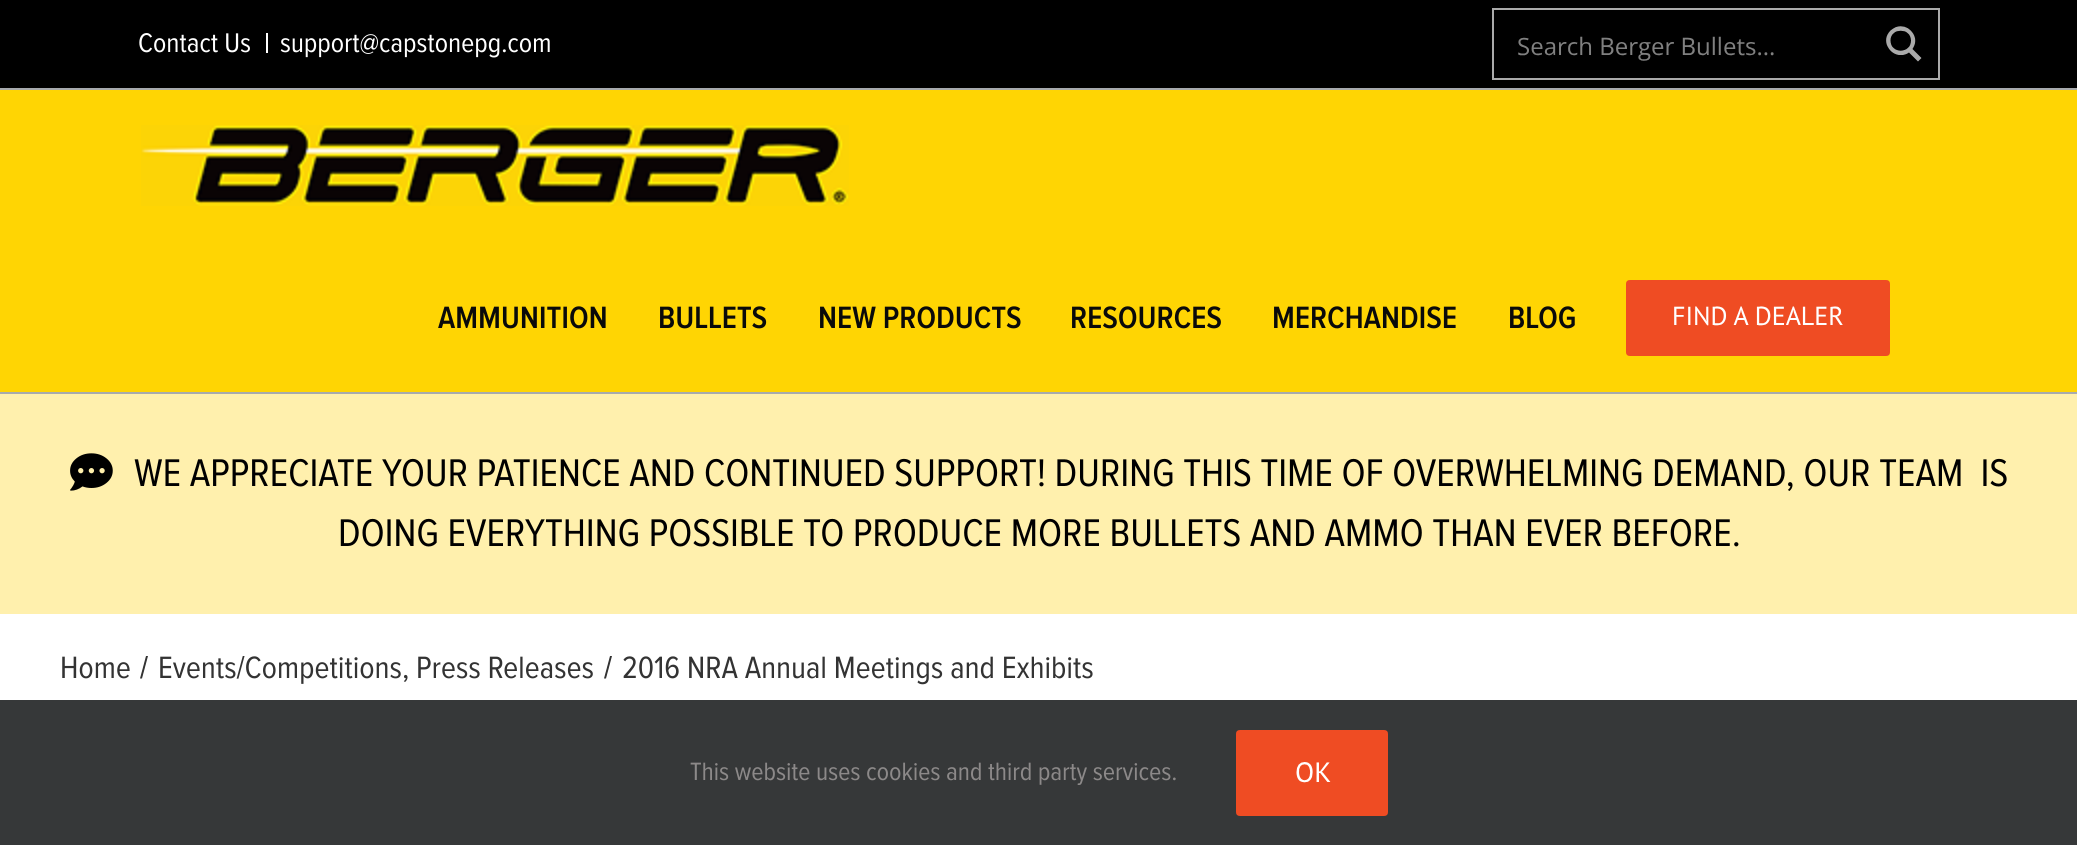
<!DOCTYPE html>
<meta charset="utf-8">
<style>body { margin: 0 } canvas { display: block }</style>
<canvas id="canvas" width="2077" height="845"></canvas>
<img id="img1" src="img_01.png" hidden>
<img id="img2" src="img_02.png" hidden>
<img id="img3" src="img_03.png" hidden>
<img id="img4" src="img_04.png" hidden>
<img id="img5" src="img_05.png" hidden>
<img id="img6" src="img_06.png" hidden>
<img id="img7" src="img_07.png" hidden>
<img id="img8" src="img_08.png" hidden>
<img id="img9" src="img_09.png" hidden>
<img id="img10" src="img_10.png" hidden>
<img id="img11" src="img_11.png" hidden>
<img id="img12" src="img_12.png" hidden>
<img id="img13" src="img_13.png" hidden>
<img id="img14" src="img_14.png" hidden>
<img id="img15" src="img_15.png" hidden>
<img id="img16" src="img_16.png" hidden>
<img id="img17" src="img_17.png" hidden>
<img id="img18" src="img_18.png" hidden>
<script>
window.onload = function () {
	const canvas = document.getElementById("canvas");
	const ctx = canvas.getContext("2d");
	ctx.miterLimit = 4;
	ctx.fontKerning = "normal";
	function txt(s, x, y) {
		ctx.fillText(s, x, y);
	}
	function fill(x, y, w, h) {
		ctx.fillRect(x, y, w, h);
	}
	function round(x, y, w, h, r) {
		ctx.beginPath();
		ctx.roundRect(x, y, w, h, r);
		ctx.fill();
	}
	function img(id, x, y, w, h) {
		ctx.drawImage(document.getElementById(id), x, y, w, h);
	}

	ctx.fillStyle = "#FFFFFF";
	fill(0, 0, 2077, 845);
	ctx.fillStyle = "#000000";
	fill(0, 0, 2077, 88);
	ctx.fillStyle = "#A7AAAD";
	fill(0, 88, 2077, 2);
	img("img1", 139, 33, 111, 20);
	ctx.fillStyle = "#FFFFFF";
	fill(266, 33, 2, 20);
	img("img2", 280, 34, 270, 24);
	ctx.strokeStyle = "#AAAAAA";
	ctx.lineWidth = 2;
	ctx.strokeRect(1493, 9, 446, 70);
	ctx.fillStyle = "#AAAAAA";
	ctx.beginPath();
	ctx.moveTo(1921.5, 58);
	ctx.lineTo(1912.5, 49);
	ctx.bezierCurveTo(1922.5, 35, 1903.5, 18, 1890.5, 30.5);
	ctx.bezierCurveTo(1878, 43, 1895, 62, 1909, 52.5);
	ctx.lineTo(1918, 61.5);
	ctx.closePath();
	ctx.moveTo(1890.5, 40.5);
	ctx.bezierCurveTo(1890.5, 27.5, 1911, 27.5, 1911, 40.5);
	ctx.bezierCurveTo(1911, 54, 1890.5, 54, 1890.5, 40.5);
	ctx.closePath();
	ctx.fill();
	ctx.fillStyle = "#FFD503";
	fill(0, 90, 2077, 302);
	ctx.fillStyle = "#A7AAAD";
	fill(0, 392, 2077, 2);
	img("img3", 141, 125, 708, 81);
	img("img4", 438, 306, 168, 23);
	img("img5", 660, 306, 107, 23);
	img("img6", 820, 306, 201, 23);
	img("img7", 1072, 306, 149, 23);
	img("img8", 1274, 306, 182, 23);
	img("img9", 1510, 306, 65, 23);
	ctx.fillStyle = "#EF4C23";
	round(1626, 280, 264, 76, 4);
	ctx.fillStyle = "#FFF0AD";
	fill(0, 394, 2077, 220);
	img("img10", 70, 453, 43, 38);
	img("img11", 134, 458, 1873, 33);
	img("img12", 340, 518, 1399, 29);
	img("img13", 62, 656, 68, 23);
	ctx.fillStyle = "#333333";
	ctx.beginPath();
	ctx.moveTo(142, 678.5);
	ctx.lineTo(148, 656);
	ctx.lineTo(146, 656);
	ctx.lineTo(140, 678.5);
	ctx.closePath();
	ctx.fill();
	img("img14", 160, 656, 241, 28);
	img("img15", 403, 674, 5, 8);
	img("img16", 418, 656, 175, 23);
	ctx.beginPath();
	ctx.moveTo(606, 678.5);
	ctx.lineTo(612, 656);
	ctx.lineTo(610, 656);
	ctx.lineTo(604, 678.5);
	ctx.closePath();
	ctx.fill();
	img("img17", 623, 656, 470, 29);
	ctx.fillStyle = "#363839";
	fill(0, 700, 2077, 145);
	img("img18", 690, 762, 486, 23);
	ctx.fillStyle = "#EF4C23";
	round(1236, 730, 152, 86, 4);
	ctx.font = "24px Open Sans";
	ctx.fillStyle = "#808080";
	txt("Search Berger Bullets...", 1517, 55);
	ctx.font = "26px PT Sans";
	ctx.fillStyle = "#FFFFFF";
	txt("FIND A DEALER", 1672, 325);
	ctx.font = "28px PT Sans";
	txt("OK", 1295, 782);
};
</script>
